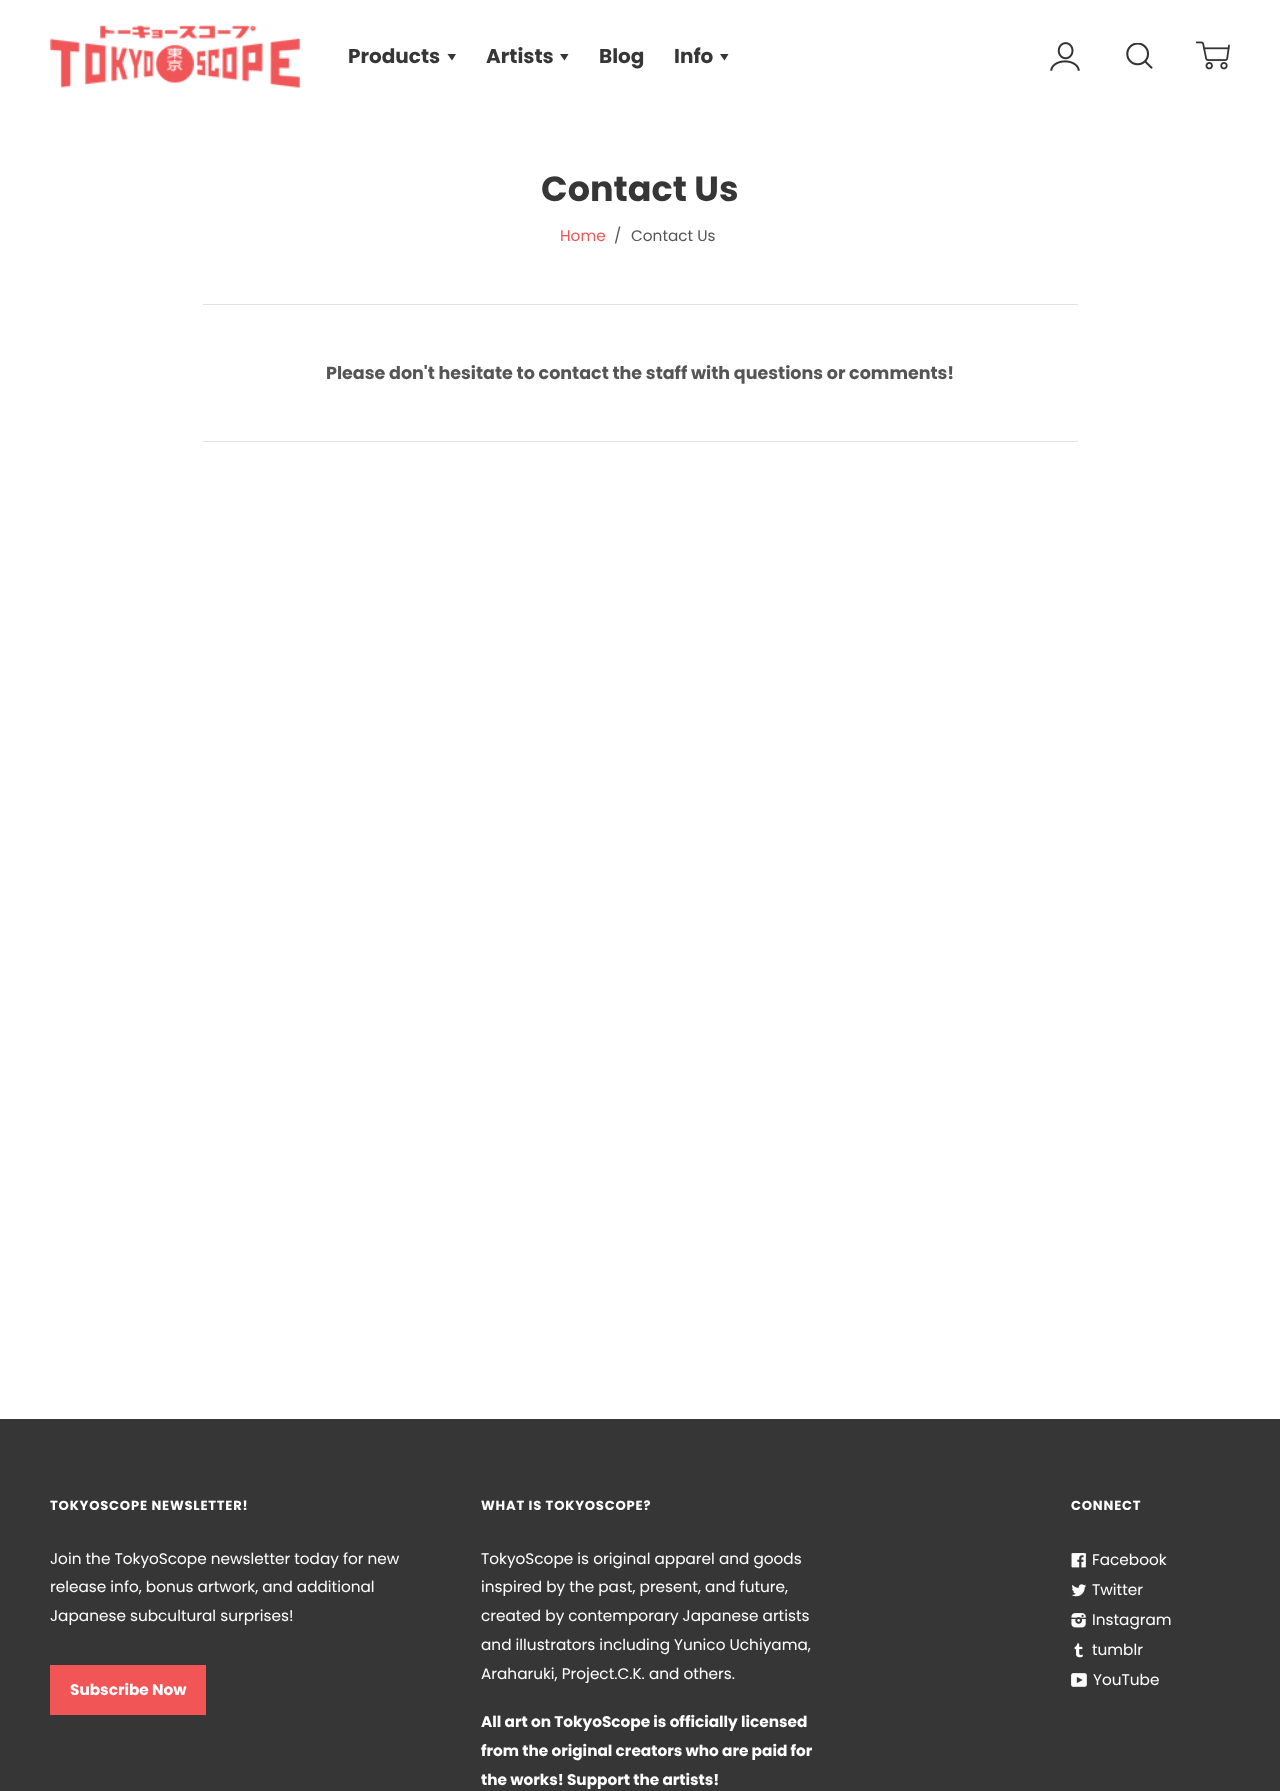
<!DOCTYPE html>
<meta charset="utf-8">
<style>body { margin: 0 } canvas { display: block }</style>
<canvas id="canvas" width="1280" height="1791"></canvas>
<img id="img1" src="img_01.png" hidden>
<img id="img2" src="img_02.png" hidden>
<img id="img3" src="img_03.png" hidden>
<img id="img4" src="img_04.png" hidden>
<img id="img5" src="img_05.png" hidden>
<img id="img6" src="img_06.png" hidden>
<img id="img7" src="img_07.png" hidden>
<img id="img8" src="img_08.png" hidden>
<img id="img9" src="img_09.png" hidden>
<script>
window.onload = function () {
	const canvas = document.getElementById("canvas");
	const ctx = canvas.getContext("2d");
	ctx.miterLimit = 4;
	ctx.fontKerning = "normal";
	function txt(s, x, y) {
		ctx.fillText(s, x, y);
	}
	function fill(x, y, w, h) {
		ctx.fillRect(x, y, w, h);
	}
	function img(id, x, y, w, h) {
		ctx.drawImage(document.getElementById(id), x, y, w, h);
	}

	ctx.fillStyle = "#FFFFFF";
	fill(0, 0, 1280, 1791);
	ctx.fillStyle = "rgba(0, 0, 0, 0.3)";
	ctx.filter = "blur(0.5px)";
	ctx.beginPath();
	ctx.rect(1, 3, 1278, 110);
	ctx.fill();
	ctx.filter = "none";
	ctx.fillStyle = "#FFFFFF";
	fill(0, 2, 1280, 111);
	img("img1", 50, 25, 250, 63);
	ctx.fillStyle = "#363636";
	ctx.beginPath();
	ctx.moveTo(447.5, 54);
	ctx.lineTo(456, 54);
	ctx.lineTo(452, 60.5);
	ctx.closePath();
	ctx.fill();
	ctx.beginPath();
	ctx.moveTo(560, 54);
	ctx.lineTo(568.5, 54);
	ctx.lineTo(564.5, 60.5);
	ctx.closePath();
	ctx.fill();
	ctx.beginPath();
	ctx.moveTo(720, 54);
	ctx.lineTo(728.5, 54);
	ctx.lineTo(724.5, 60.5);
	ctx.closePath();
	ctx.fill();
	img("img2", 1050, 42, 30, 29);
	img("img3", 1126, 43, 27, 26);
	img("img4", 1195, 41, 35, 29);
	ctx.fillStyle = "#E2E2E2";
	fill(203, 304, 875, 1);
	fill(203, 441, 875, 1);
	ctx.fillStyle = "#363636";
	fill(0, 1419, 1280, 372);
	ctx.fillStyle = "#F15556";
	fill(50, 1665, 156, 50);
	img("img5", 1071, 1553, 15, 15);
	img("img6", 1071, 1584, 16, 13);
	img("img7", 1071, 1613, 15, 15);
	img("img8", 1074, 1643, 9, 15);
	img("img9", 1071, 1673, 16, 14);
	ctx.font = "bold 20px Poppins";
	ctx.fillStyle = "#363636";
	txt("Products", 348, 63);
	txt("Artists", 486, 63);
	txt("Blog", 599, 63);
	txt("Info", 674, 63);
	ctx.font = "bold 35px Poppins";
	txt("Contact Us", 541, 201);
	ctx.font = "15.3px Poppins";
	ctx.fillStyle = "#F15556";
	txt("Home", 560, 241);
	ctx.fillStyle = "#565555";
	txt("/", 614, 241);
	txt("Contact Us", 631, 241);
	ctx.font = "bold 17.5px Poppins";
	txt("Please don't hesitate to contact the staff with questions or comments!", 326, 379);
	ctx.letterSpacing = "0.8px";
	ctx.font = "bold 13.1px Poppins";
	ctx.fillStyle = "#FFFFFF";
	txt("TOKYOSCOPE NEWSLETTER!", 50, 1510);
	ctx.letterSpacing = "0px";
	ctx.font = "15.3px Poppins";
	txt("Join the TokyoScope newsletter today for new", 50, 1564);
	txt("release info, bonus artwork, and additional", 50, 1592);
	txt("Japanese subcultural surprises!", 50, 1621);
	ctx.font = "bold 15.3px Poppins";
	txt("Subscribe Now", 70, 1695);
	ctx.letterSpacing = "0.8px";
	ctx.font = "bold 13.1px Poppins";
	txt("WHAT IS TOKYOSCOPE?", 481, 1510);
	ctx.letterSpacing = "0px";
	ctx.font = "15.3px Poppins";
	txt("TokyoScope is original apparel and goods", 481, 1564);
	txt("inspired by the past, present, and future,", 481, 1592);
	txt("created by contemporary Japanese artists", 481, 1621);
	txt("and illustrators including Yunico Uchiyama,", 481, 1650);
	txt("Araharuki, Project.C.K. and others.", 481, 1679);
	ctx.font = "bold 15.3px Poppins";
	txt("All art on TokyoScope is officially licensed", 481, 1727);
	txt("from the original creators who are paid for", 481, 1756);
	txt("the works! Support the artists!", 481, 1785);
	ctx.letterSpacing = "0.8px";
	ctx.font = "bold 13.1px Poppins";
	txt("CONNECT", 1071, 1510);
	ctx.letterSpacing = "0px";
	ctx.font = "15.3px Poppins";
	txt("Facebook", 1092, 1565);
	txt("Twitter", 1092, 1595);
	txt("Instagram", 1092, 1625);
	txt("tumblr", 1092, 1655);
	txt("YouTube", 1093, 1685);
};
</script>
